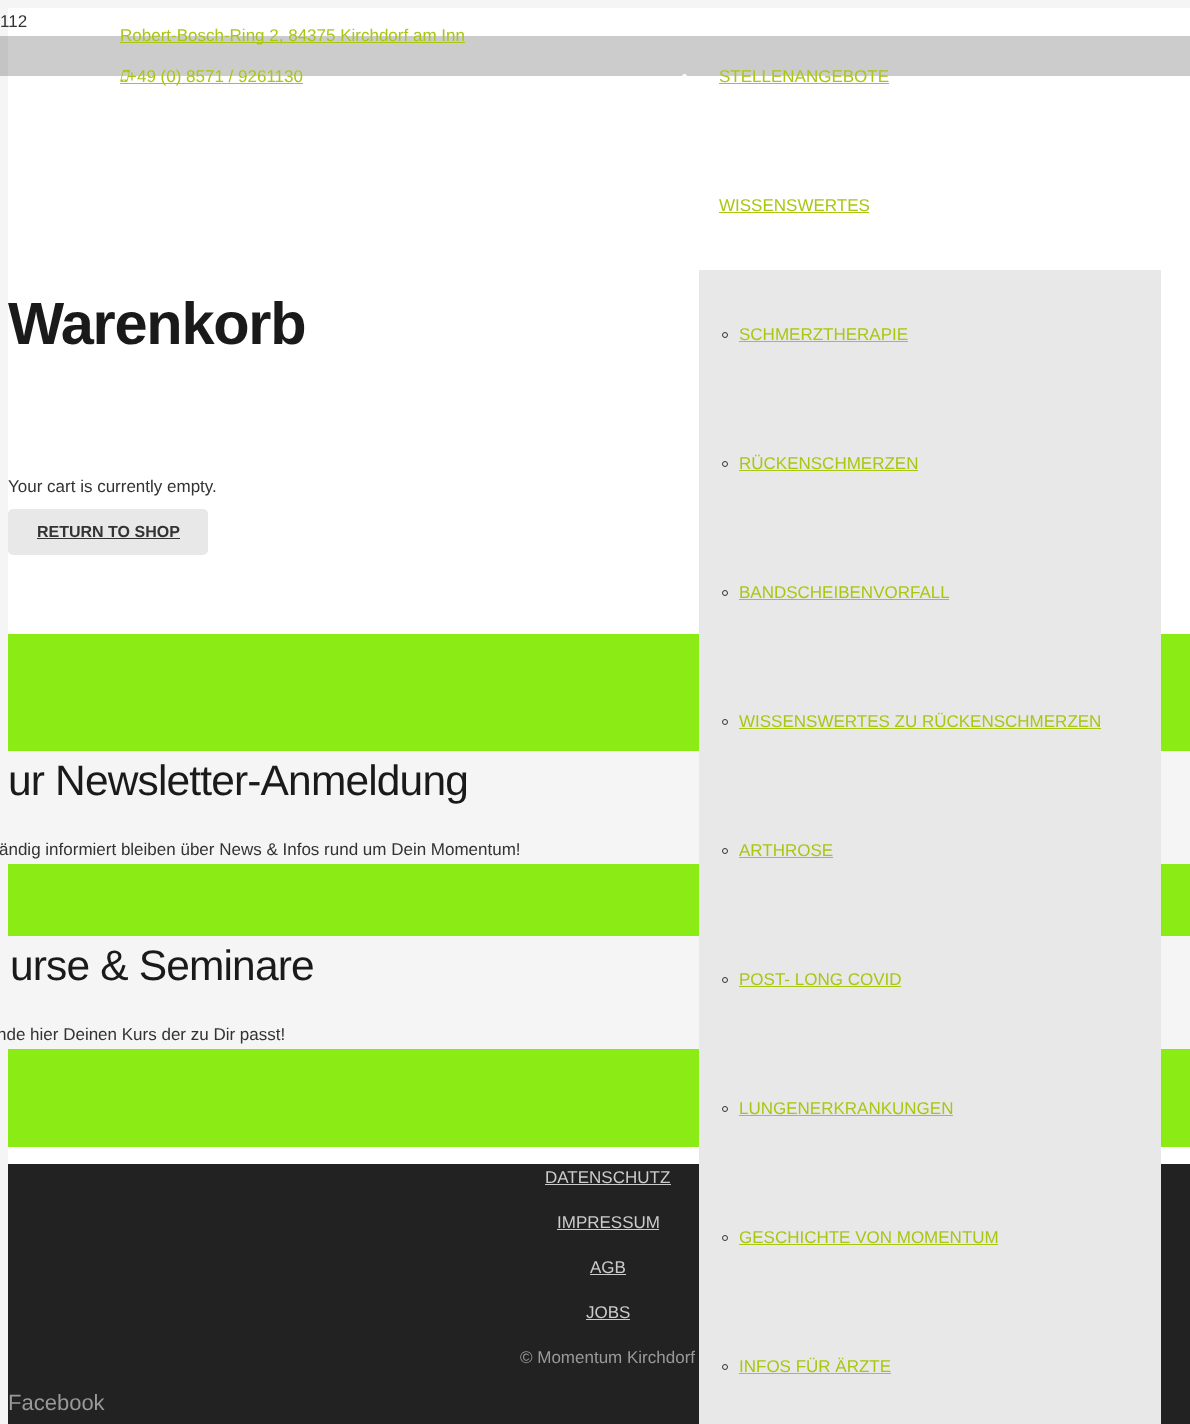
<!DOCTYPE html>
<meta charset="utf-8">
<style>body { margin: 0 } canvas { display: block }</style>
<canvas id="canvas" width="1190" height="1424"></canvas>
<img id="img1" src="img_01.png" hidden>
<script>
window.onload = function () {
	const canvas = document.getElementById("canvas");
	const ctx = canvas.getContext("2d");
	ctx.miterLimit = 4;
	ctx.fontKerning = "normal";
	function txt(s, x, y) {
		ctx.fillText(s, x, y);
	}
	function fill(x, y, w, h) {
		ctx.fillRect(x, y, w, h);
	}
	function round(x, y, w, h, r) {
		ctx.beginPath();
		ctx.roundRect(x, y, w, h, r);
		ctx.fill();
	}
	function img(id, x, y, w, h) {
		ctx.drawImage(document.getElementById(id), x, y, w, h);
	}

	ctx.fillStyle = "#F5F5F5";
	fill(0, 0, 1190, 1424);
	ctx.fillStyle = "#C4C4C4";
	fill(0, 36, 8, 40);
	ctx.fillStyle = "#FFFFFF";
	fill(8, 8, 1182, 626);
	ctx.fillStyle = "#CCCCCC";
	fill(8, 36, 1182, 40);
	ctx.fillStyle = "#AAC612";
	fill(120, 42, 345, 1);
	img("img1", 120, 69, 10, 13);
	fill(120, 83, 183, 1);
	ctx.fillStyle = "#FFFFFF";
	ctx.beginPath();
	ctx.arc(684.5, 76.5, 2.5, 0, Math.PI * 2);
	ctx.fill();
	ctx.fillStyle = "#AAC612";
	fill(719, 83, 170, 1);
	fill(719, 212, 150, 1);
	ctx.fillStyle = "#FFFFFF";
	fill(8, 1147, 1182, 17);
	ctx.fillStyle = "#8BEB15";
	fill(8, 634, 1182, 513);
	ctx.fillStyle = "#F5F5F5";
	fill(8, 751, 1182, 113);
	fill(8, 936, 1182, 113);
	ctx.fillStyle = "#222222";
	fill(8, 1164, 1182, 260);
	ctx.fillStyle = "#E8E8E8";
	fill(699, 270, 462, 1154);
	ctx.beginPath();
	ctx.arc(725, 335, 2.5, 0, Math.PI * 2);
	ctx.strokeStyle = "#333333";
	ctx.stroke();
	ctx.fillStyle = "#AAC612";
	fill(739, 341, 169, 1);
	ctx.beginPath();
	ctx.arc(725, 464, 2.5, 0, Math.PI * 2);
	ctx.stroke();
	fill(739, 470, 179, 1);
	ctx.beginPath();
	ctx.arc(725, 593, 2.5, 0, Math.PI * 2);
	ctx.stroke();
	fill(739, 599, 210, 1);
	ctx.beginPath();
	ctx.arc(725, 722, 2.5, 0, Math.PI * 2);
	ctx.stroke();
	fill(739, 728, 362, 1);
	ctx.beginPath();
	ctx.arc(725, 851, 2.5, 0, Math.PI * 2);
	ctx.stroke();
	fill(739, 857, 94, 1);
	ctx.beginPath();
	ctx.arc(725, 980, 2.5, 0, Math.PI * 2);
	ctx.stroke();
	fill(739, 986, 162, 1);
	ctx.beginPath();
	ctx.arc(725, 1109, 2.5, 0, Math.PI * 2);
	ctx.stroke();
	fill(739, 1115, 214, 1);
	ctx.beginPath();
	ctx.arc(725, 1238, 2.5, 0, Math.PI * 2);
	ctx.stroke();
	fill(739, 1244, 259, 1);
	ctx.beginPath();
	ctx.arc(725, 1367, 2.5, 0, Math.PI * 2);
	ctx.stroke();
	fill(739, 1373, 152, 1);
	ctx.fillStyle = "#E8E8E8";
	round(8, 509, 200, 46, 5);
	ctx.fillStyle = "#333333";
	fill(37, 538, 143, 1);
	ctx.fillStyle = "#CCCCCC";
	fill(545, 1184, 126, 1);
	fill(557, 1229, 102, 1);
	fill(590, 1274, 36, 1);
	fill(586, 1319, 44, 1);
	ctx.font = "17px Liberation Sans";
	ctx.fillStyle = "#333333";
	txt("112", 0, 27);
	ctx.fillStyle = "#AAC612";
	txt("Robert-Bosch-Ring 2, 84375 Kirchdorf am Inn", 120, 41);
	txt("+49 (0) 8571 / 9261130", 127, 82);
	txt("STELLENANGEBOTE", 719, 82);
	txt("WISSENSWERTES", 719, 211);
	txt("SCHMERZTHERAPIE", 739, 340);
	txt("RÜCKENSCHMERZEN", 739, 469);
	txt("BANDSCHEIBENVORFALL", 739, 598);
	txt("WISSENSWERTES ZU RÜCKENSCHMERZEN", 739, 727);
	txt("ARTHROSE", 739, 856);
	txt("POST- LONG COVID", 739, 985);
	txt("LUNGENERKRANKUNGEN", 739, 1114);
	txt("GESCHICHTE VON MOMENTUM", 739, 1243);
	txt("INFOS FÜR ÄRZTE", 739, 1372);
	ctx.letterSpacing = "-1.25px";
	ctx.font = "bold 59.5px Liberation Sans";
	ctx.fillStyle = "#1A1A1A";
	txt("Warenkorb", 8, 344);
	ctx.letterSpacing = "0px";
	ctx.font = "17px Liberation Sans";
	ctx.fillStyle = "#333333";
	txt("Your cart is currently empty.", 8, 492);
	ctx.font = "bold 16px Liberation Sans";
	txt("RETURN TO SHOP", 37, 537);
	ctx.letterSpacing = "-0.85px";
	ctx.font = "42.5px Liberation Sans";
	ctx.fillStyle = "#1A1A1A";
	txt("ur Newsletter-Anmeldung", 8, 795);
	ctx.letterSpacing = "0px";
	ctx.font = "17px Liberation Sans";
	ctx.fillStyle = "#333333";
	txt("ändig informiert bleiben über News & Infos rund um Dein Momentum!", -1, 855);
	ctx.letterSpacing = "-0.85px";
	ctx.font = "42.5px Liberation Sans";
	ctx.fillStyle = "#1A1A1A";
	txt("urse & Seminare", 10, 980);
	ctx.letterSpacing = "0px";
	ctx.font = "17px Liberation Sans";
	ctx.fillStyle = "#333333";
	txt("nde hier Deinen Kurs der zu Dir passt!", -3, 1040);
	ctx.fillStyle = "#CCCCCC";
	txt("DATENSCHUTZ", 545, 1183);
	txt("IMPRESSUM", 557, 1228);
	txt("AGB", 590, 1273);
	txt("JOBS", 586, 1318);
	ctx.fillStyle = "#999999";
	txt("© Momentum Kirchdorf", 520, 1363);
	ctx.font = "22px Liberation Sans";
	txt("Facebook", 8, 1410);
};
</script>
